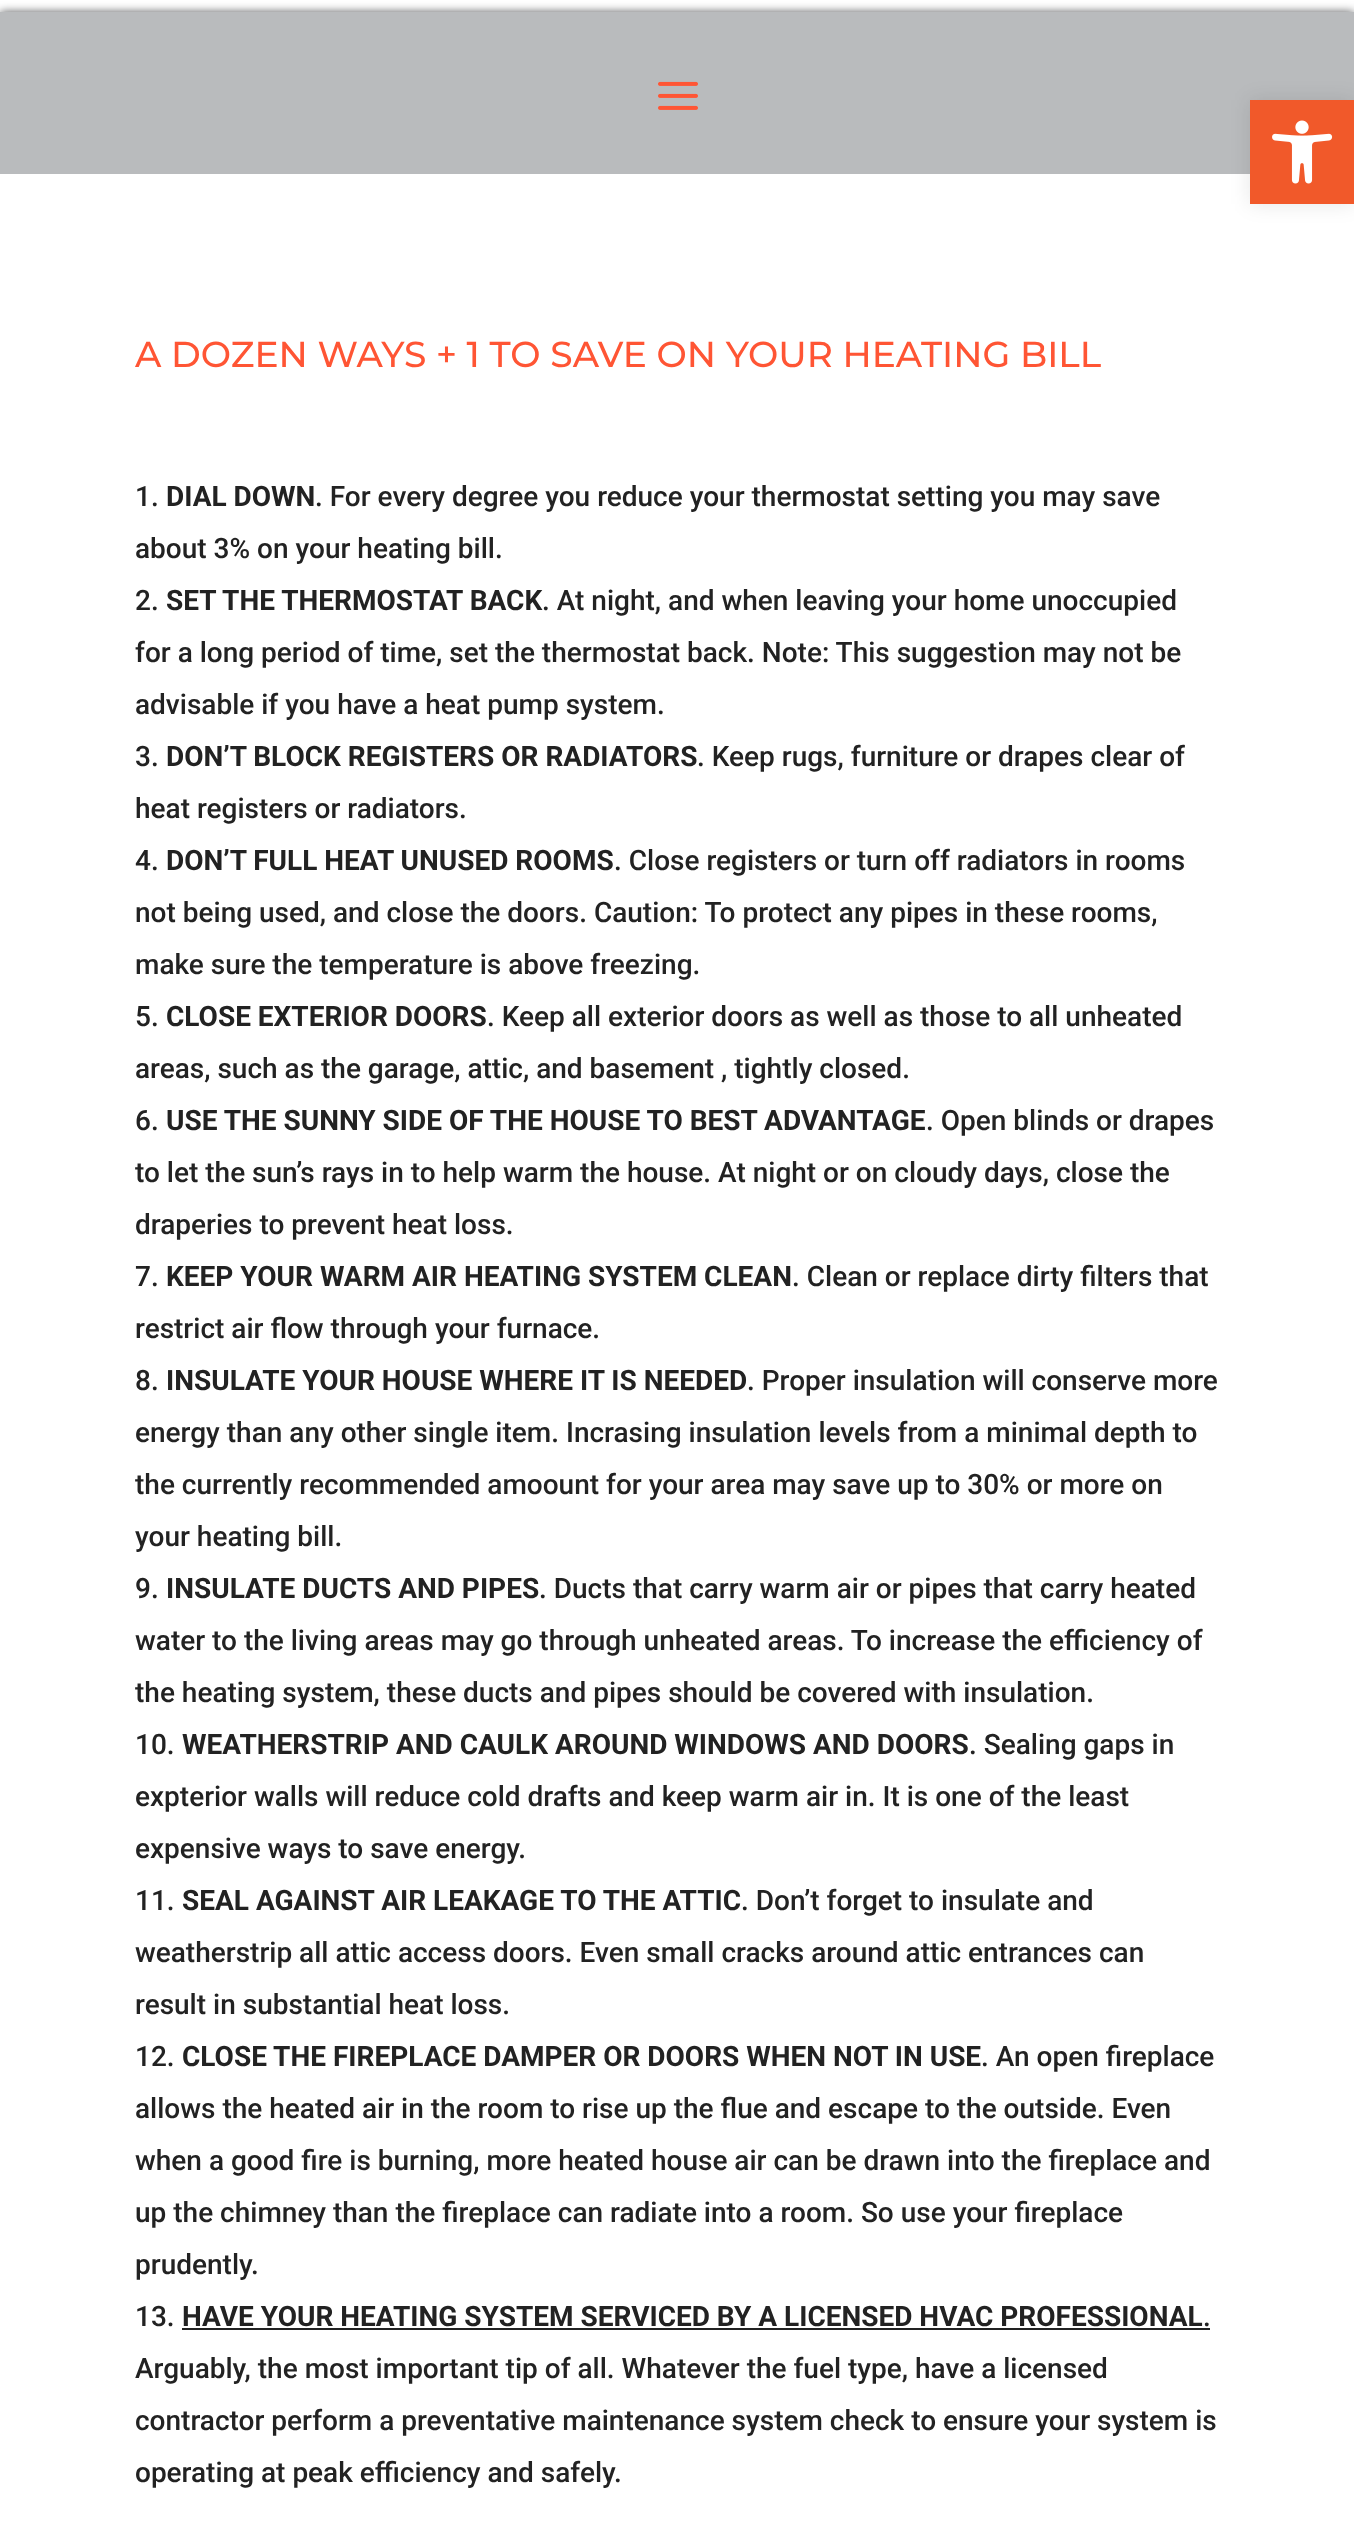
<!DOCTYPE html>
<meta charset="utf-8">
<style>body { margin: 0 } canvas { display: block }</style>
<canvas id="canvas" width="1354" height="2536"></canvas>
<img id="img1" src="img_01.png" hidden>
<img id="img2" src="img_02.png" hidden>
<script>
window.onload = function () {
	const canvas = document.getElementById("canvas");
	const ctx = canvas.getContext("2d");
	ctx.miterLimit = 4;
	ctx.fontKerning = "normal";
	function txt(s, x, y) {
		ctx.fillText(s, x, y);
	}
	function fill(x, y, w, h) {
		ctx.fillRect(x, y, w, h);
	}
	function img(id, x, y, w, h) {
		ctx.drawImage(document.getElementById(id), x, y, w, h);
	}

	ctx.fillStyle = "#FFFFFF";
	fill(0, 0, 1354, 2536);
	ctx.fillStyle = "#555658";
	ctx.filter = "blur(5px)";
	ctx.beginPath();
	ctx.rect(0, 12, 1354, 162);
	ctx.fill();
	ctx.filter = "none";
	ctx.fillStyle = "#B9BBBD";
	fill(0, 12, 1354, 162);
	ctx.fillStyle = "#FFFFFF";
	fill(0, 174, 1354, 11);
	ctx.fillStyle = "rgba(0, 0, 0, 0.1)";
	ctx.filter = "blur(10px)";
	ctx.beginPath();
	ctx.rect(1250, 100, 104, 104);
	ctx.fill();
	ctx.filter = "none";
	ctx.fillStyle = "#F1592A";
	fill(1250, 100, 104, 104);
	img("img1", 1272, 120, 61, 64);
	img("img2", 658, 81, 40, 29);
	ctx.fillStyle = "#222222";
	fill(182, 2328, 1028, 2);
	ctx.font = "500 36px Montserrat";
	ctx.fillStyle = "#FF5534";
	txt("A DOZEN WAYS + 1 TO SAVE ON YOUR HEATING BILL", 135, 367);
	ctx.font = "500 28px Roboto";
	ctx.fillStyle = "#222222";
	txt("1.", 135, 506);
	ctx.font = "bold 28px Roboto";
	txt("DIAL DOWN", 166, 506);
	ctx.font = "500 28px Roboto";
	txt(". For every degree you reduce your thermostat setting you may save", 315, 506);
	txt("about 3% on your heating bill.", 135, 558);
	txt("2.", 135, 610);
	ctx.font = "bold 28px Roboto";
	txt("SET THE THERMOSTAT BACK", 166, 610);
	ctx.font = "500 28px Roboto";
	txt(". At night, and when leaving your home unoccupied", 542, 610);
	txt("for a long period of time, set the thermostat back. Note: This suggestion may not be", 135, 662);
	txt("advisable if you have a heat pump system.", 135, 714);
	txt("3.", 135, 766);
	ctx.font = "bold 28px Roboto";
	txt("DON’T BLOCK REGISTERS OR RADIATORS", 166, 766);
	ctx.font = "500 28px Roboto";
	txt(". Keep rugs, furniture or drapes clear of", 697, 766);
	txt("heat registers or radiators.", 135, 818);
	txt("4.", 135, 870);
	ctx.font = "bold 28px Roboto";
	txt("DON’T FULL HEAT UNUSED ROOMS", 166, 870);
	ctx.font = "500 28px Roboto";
	txt(". Close registers or turn off radiators in rooms", 614, 870);
	txt("not being used, and close the doors. Caution: To protect any pipes in these rooms,", 135, 922);
	txt("make sure the temperature is above freezing.", 135, 974);
	txt("5.", 135, 1026);
	ctx.font = "bold 28px Roboto";
	txt("CLOSE EXTERIOR DOORS", 166, 1026);
	ctx.font = "500 28px Roboto";
	txt(". Keep all exterior doors as well as those to all unheated", 487, 1026);
	txt("areas, such as the garage, attic, and basement , tightly closed.", 135, 1078);
	txt("6.", 135, 1130);
	ctx.font = "bold 28px Roboto";
	txt("USE THE SUNNY SIDE OF THE HOUSE TO BEST ADVANTAGE", 166, 1130);
	ctx.font = "500 28px Roboto";
	txt(". Open blinds or drapes", 926, 1130);
	txt("to let the sun’s rays in to help warm the house. At night or on cloudy days, close the", 135, 1182);
	txt("draperies to prevent heat loss.", 135, 1234);
	txt("7.", 135, 1286);
	ctx.font = "bold 28px Roboto";
	txt("KEEP YOUR WARM AIR HEATING SYSTEM CLEAN", 166, 1286);
	ctx.font = "500 28px Roboto";
	txt(". Clean or replace dirty filters that", 792, 1286);
	txt("restrict air flow through your furnace.", 135, 1338);
	txt("8.", 135, 1390);
	ctx.font = "bold 28px Roboto";
	txt("INSULATE YOUR HOUSE WHERE IT IS NEEDED", 166, 1390);
	ctx.font = "500 28px Roboto";
	txt(". Proper insulation will conserve more", 747, 1390);
	txt("energy than any other single item. Incrasing insulation levels from a minimal depth to", 135, 1442);
	txt("the currently recommended amoount for your area may save up to 30% or more on", 135, 1494);
	txt("your heating bill.", 135, 1546);
	txt("9.", 135, 1598);
	ctx.font = "bold 28px Roboto";
	txt("INSULATE DUCTS AND PIPES", 166, 1598);
	ctx.font = "500 28px Roboto";
	txt(". Ducts that carry warm air or pipes that carry heated", 539, 1598);
	txt("water to the living areas may go through unheated areas. To increase the efficiency of", 135, 1650);
	txt("the heating system, these ducts and pipes should be covered with insulation.", 135, 1702);
	txt("10.", 135, 1754);
	ctx.font = "bold 28px Roboto";
	txt("WEATHERSTRIP AND CAULK AROUND WINDOWS AND DOORS", 182, 1754);
	ctx.font = "500 28px Roboto";
	txt(". Sealing gaps in", 969, 1754);
	txt("expterior walls will reduce cold drafts and keep warm air in. It is one of the least", 135, 1806);
	txt("expensive ways to save energy.", 135, 1858);
	txt("11.", 135, 1910);
	ctx.font = "bold 28px Roboto";
	txt("SEAL AGAINST AIR LEAKAGE TO THE ATTIC", 182, 1910);
	ctx.font = "500 28px Roboto";
	txt(". Don’t forget to insulate and", 741, 1910);
	txt("weatherstrip all attic access doors. Even small cracks around attic entrances can", 135, 1962);
	txt("result in substantial heat loss.", 135, 2014);
	txt("12.", 135, 2066);
	ctx.font = "bold 28px Roboto";
	txt("CLOSE THE FIREPLACE DAMPER OR DOORS WHEN NOT IN USE", 182, 2066);
	ctx.font = "500 28px Roboto";
	txt(". An open fireplace", 981, 2066);
	txt("allows the heated air in the room to rise up the flue and escape to the outside. Even", 135, 2118);
	txt("when a good fire is burning, more heated house air can be drawn into the fireplace and", 135, 2170);
	txt("up the chimney than the fireplace can radiate into a room. So use your fireplace", 135, 2222);
	txt("prudently.", 135, 2274);
	txt("13.", 135, 2326);
	ctx.font = "bold 28px Roboto";
	txt("HAVE YOUR HEATING SYSTEM SERVICED BY A LICENSED HVAC PROFESSIONAL", 182, 2326);
	ctx.font = "500 28px Roboto";
	txt(".", 1203, 2326);
	txt("Arguably, the most important tip of all. Whatever the fuel type, have a licensed", 135, 2378);
	txt("contractor perform a preventative maintenance system check to ensure your system is", 135, 2430);
	txt("operating at peak efficiency and safely.", 135, 2482);
};
</script>
